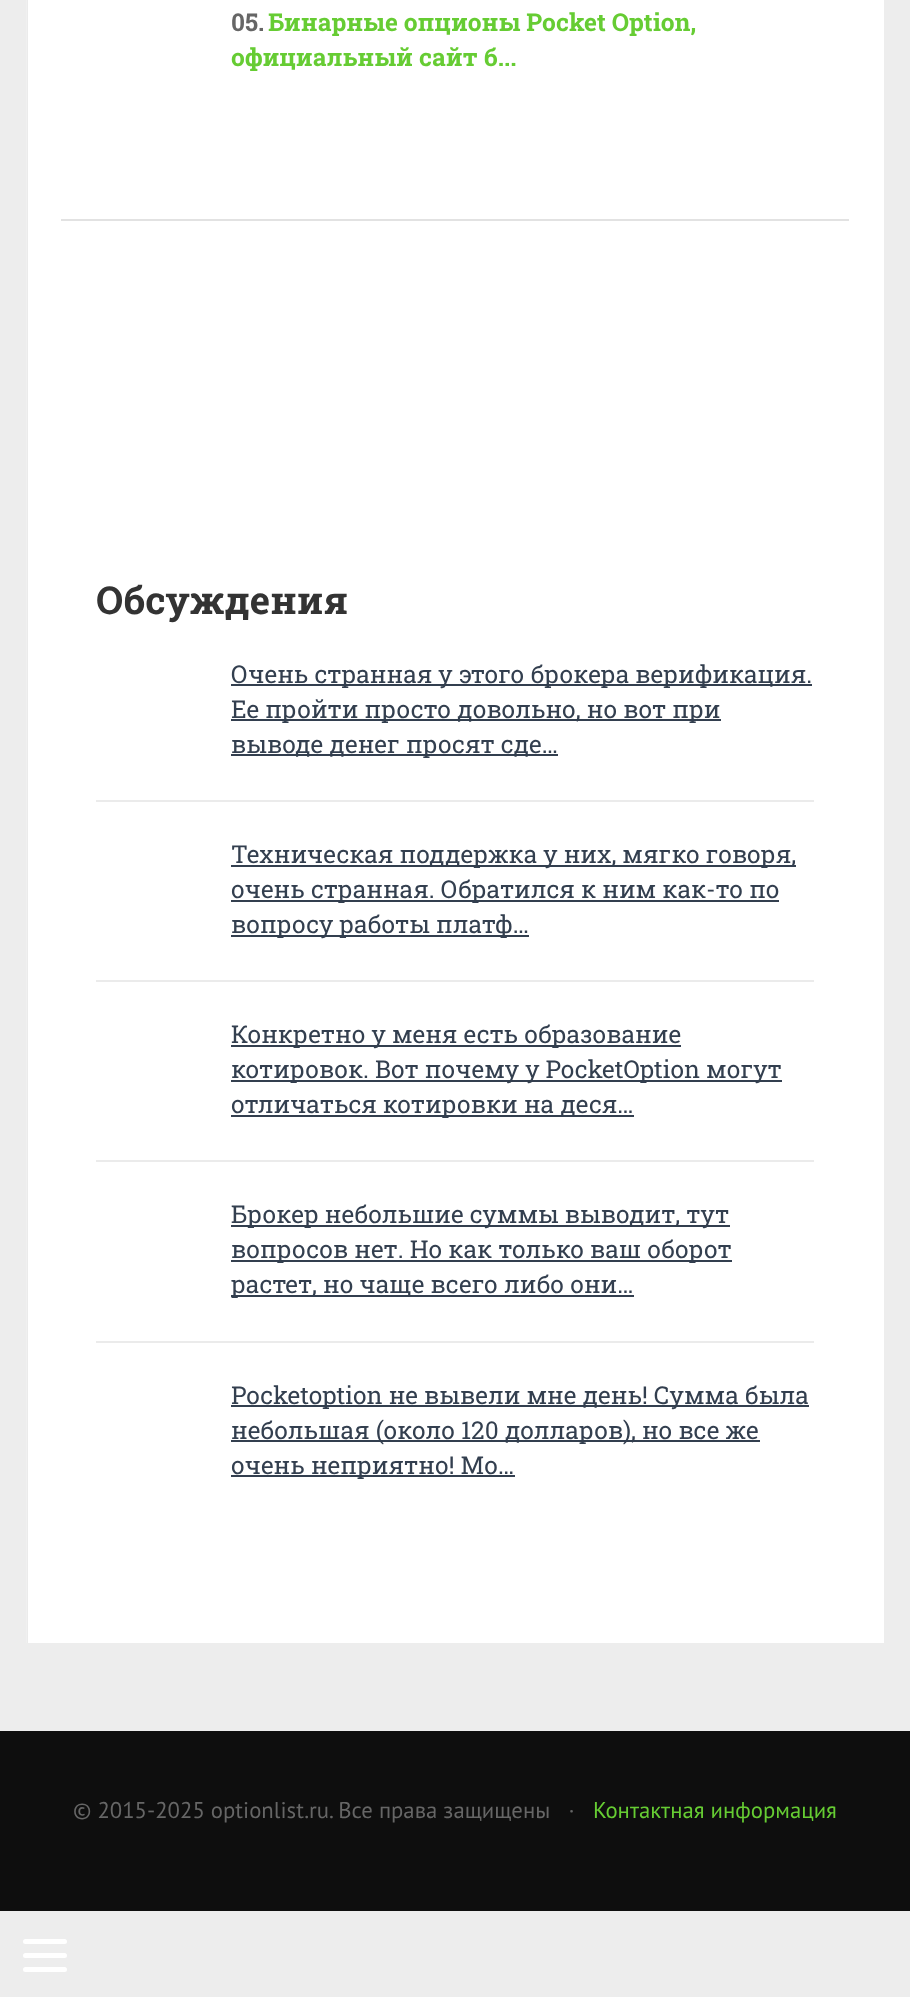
<!DOCTYPE html>
<meta charset="utf-8">
<style>body { margin: 0 } canvas { display: block }</style>
<canvas id="canvas" width="910" height="1997"></canvas>
<img id="img1" src="img_01.png" hidden>
<script>
window.onload = function () {
	const canvas = document.getElementById("canvas");
	const ctx = canvas.getContext("2d");
	ctx.miterLimit = 4;
	ctx.fontKerning = "normal";
	function txt(s, x, y) {
		ctx.fillText(s, x, y);
	}
	function fill(x, y, w, h) {
		ctx.fillRect(x, y, w, h);
	}
	function round(x, y, w, h, r) {
		ctx.beginPath();
		ctx.roundRect(x, y, w, h, r);
		ctx.fill();
	}
	function img(id, x, y, w, h) {
		ctx.drawImage(document.getElementById(id), x, y, w, h);
	}

	ctx.fillStyle = "#EDEDED";
	fill(0, 0, 910, 1997);
	ctx.fillStyle = "#FFFFFF";
	fill(26, 0, 858, 1643);
	img("img1", 26, 0, 2, 1643);
	ctx.fillStyle = "#E2E2E2";
	fill(61, 219, 788, 2);
	ctx.fillStyle = "#333F4F";
	fill(231, 684, 581, 2);
	fill(231, 719, 490, 2);
	fill(231, 754, 327, 2);
	ctx.fillStyle = "#EBEBEB";
	fill(96, 800, 718, 2);
	ctx.fillStyle = "#333F4F";
	fill(231, 865, 565, 2);
	fill(231, 900, 548, 2);
	fill(231, 935, 298, 2);
	ctx.fillStyle = "#EBEBEB";
	fill(96, 980, 718, 2);
	ctx.fillStyle = "#333F4F";
	fill(231, 1045, 450, 2);
	fill(231, 1080, 551, 2);
	fill(231, 1115, 403, 2);
	ctx.fillStyle = "#EBEBEB";
	fill(96, 1160, 718, 2);
	ctx.fillStyle = "#333F4F";
	fill(231, 1225, 499, 2);
	fill(231, 1260, 501, 2);
	fill(231, 1295, 403, 2);
	ctx.fillStyle = "#EBEBEB";
	fill(96, 1341, 718, 2);
	ctx.fillStyle = "#333F4F";
	fill(231, 1405, 578, 2);
	fill(231, 1440, 529, 2);
	fill(231, 1475, 284, 2);
	ctx.fillStyle = "#0E0E0E";
	fill(0, 1731, 910, 180);
	ctx.fillStyle = "#FFFFFF";
	round(23, 1953, 44, 5, 2.5);
	round(23, 1939, 44, 5, 2.5);
	round(23, 1967, 44, 5, 2.5);
	ctx.font = "bold 24.5px Roboto Slab";
	ctx.fillStyle = "#666666";
	txt("05.", 231, 31);
	ctx.fillStyle = "#66CC33";
	txt("Бинарные опционы Pocket Option,", 268, 31);
	txt("официальный сайт б...", 231, 66);
	ctx.font = "bold 38.5px Roboto Slab";
	ctx.fillStyle = "#333333";
	txt("Обсуждения", 96, 614);
	ctx.font = "24.5px Roboto Slab";
	ctx.fillStyle = "#333F4F";
	txt("Очень странная у этого брокера верификация.", 231, 683);
	txt("Ее пройти просто довольно, но вот при", 231, 718);
	txt("выводе денег просят сде…", 231, 753);
	txt("Техническая поддержка у них, мягко говоря,", 231, 863);
	txt("очень странная. Обратился к ним как-то по", 231, 898);
	txt("вопросу работы платф…", 231, 933);
	txt("Конкретно у меня есть образование", 231, 1043);
	txt("котировок. Вот почему у PocketOption могут", 231, 1078);
	txt("отличаться котировки на деся…", 231, 1113);
	txt("Брокер небольшие суммы выводит, тут", 231, 1223);
	txt("вопросов нет. Но как только ваш оборот", 231, 1258);
	txt("растет, но чаще всего либо они…", 231, 1293);
	txt("Pocketoption не вывели мне день! Сумма была", 231, 1404);
	txt("небольшая (около 120 долларов), но все же", 231, 1439);
	txt("очень неприятно! Мо…", 231, 1474);
	ctx.font = "22.75px PT Sans";
	ctx.fillStyle = "#666666";
	txt("© 2015-2025 optionlist.ru. Все права защищены   ·", 73, 1818);
	ctx.fillStyle = "#66CC33";
	txt("Контактная информация", 593, 1818);
};
</script>
